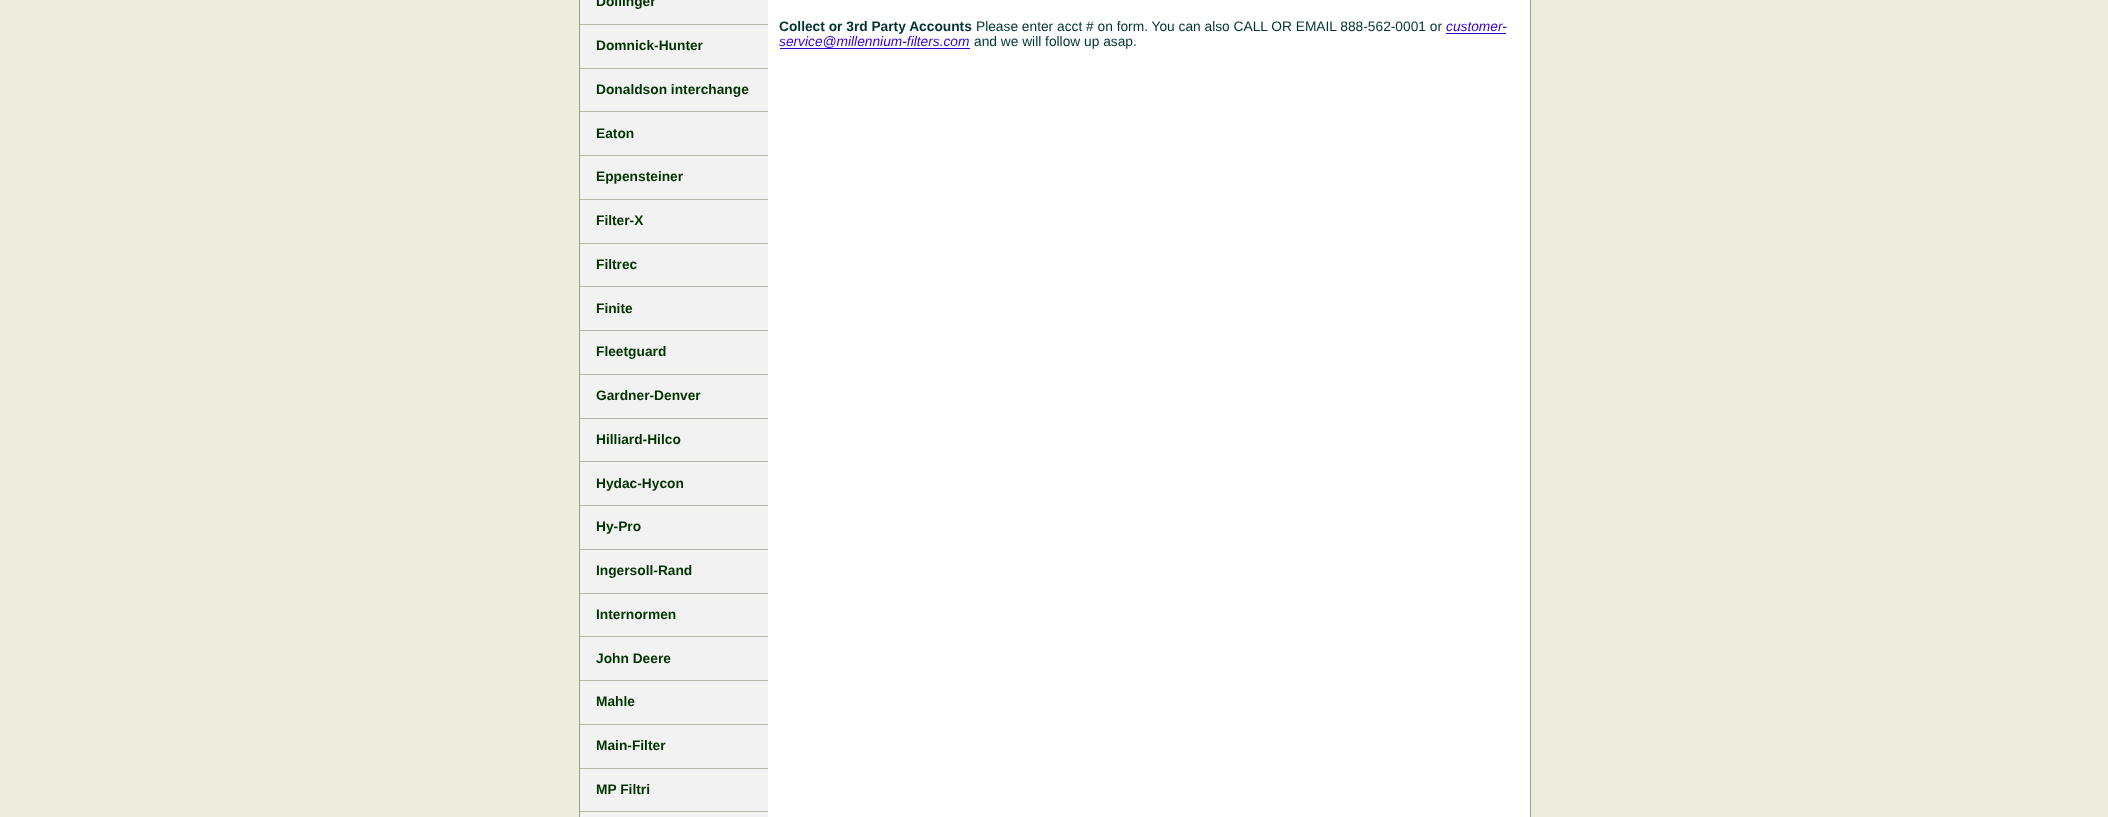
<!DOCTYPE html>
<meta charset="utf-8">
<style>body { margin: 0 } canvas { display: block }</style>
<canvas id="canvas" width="2108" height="817"></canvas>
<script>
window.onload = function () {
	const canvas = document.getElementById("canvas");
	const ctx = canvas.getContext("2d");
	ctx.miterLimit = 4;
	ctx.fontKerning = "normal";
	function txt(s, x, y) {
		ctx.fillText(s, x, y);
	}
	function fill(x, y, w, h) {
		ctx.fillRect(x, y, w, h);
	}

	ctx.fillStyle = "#ECEDDC";
	fill(0, 0, 2108, 817);
	ctx.fillStyle = "#FFFFFF";
	fill(768, 0, 762, 817);
	ctx.strokeStyle = "#98A280";
	ctx.strokeRect(579.5, -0.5, 951, 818);
	ctx.fillStyle = "#F1F2F1";
	fill(580, 0, 188, 817);
	ctx.fillStyle = "#B4BBAB";
	fill(580, 24, 188, 1);
	fill(580, 68, 188, 1);
	fill(580, 111, 188, 1);
	fill(580, 155, 188, 1);
	fill(580, 199, 188, 1);
	fill(580, 243, 188, 1);
	fill(580, 286, 188, 1);
	fill(580, 330, 188, 1);
	fill(580, 374, 188, 1);
	fill(580, 418, 188, 1);
	fill(580, 461, 188, 1);
	fill(580, 505, 188, 1);
	fill(580, 549, 188, 1);
	fill(580, 593, 188, 1);
	fill(580, 636, 188, 1);
	fill(580, 680, 188, 1);
	fill(580, 724, 188, 1);
	fill(580, 768, 188, 1);
	fill(580, 811, 188, 1);
	ctx.fillStyle = "#3300CC";
	fill(1446, 33, 60, 1);
	fill(780, 48, 190, 1);
	ctx.font = "bold 13.75px Liberation Sans";
	ctx.fillStyle = "#003300";
	txt("Dollinger", 596, 6);
	txt("Domnick-Hunter", 596, 50);
	txt("Donaldson interchange", 596, 94);
	txt("Eaton", 596, 138);
	txt("Eppensteiner", 596, 181);
	txt("Filter-X", 596, 225);
	txt("Filtrec", 596, 269);
	txt("Finite", 596, 313);
	txt("Fleetguard", 596, 356);
	txt("Gardner-Denver", 596, 400);
	txt("Hilliard-Hilco", 596, 444);
	txt("Hydac-Hycon", 596, 488);
	txt("Hy-Pro", 596, 531);
	txt("Ingersoll-Rand", 596, 575);
	txt("Internormen", 596, 619);
	txt("John Deere", 596, 663);
	txt("Mahle", 596, 706);
	txt("Main-Filter", 596, 750);
	txt("MP Filtri", 596, 794);
	ctx.fillStyle = "#003333";
	txt("Collect or 3rd Party Accounts", 779, 31);
	ctx.font = "13.75px Liberation Sans";
	txt("Please enter acct # on form. You can also CALL OR EMAIL 888-562-0001 or", 976, 31);
	ctx.font = "italic 13.75px Liberation Sans";
	ctx.fillStyle = "#3300CC";
	txt("customer-", 1446, 31);
	txt("service@millennium-filters.com", 779, 46);
	ctx.font = "13.75px Liberation Sans";
	ctx.fillStyle = "#003333";
	txt("and we will follow up asap.", 974, 46);
};
</script>
